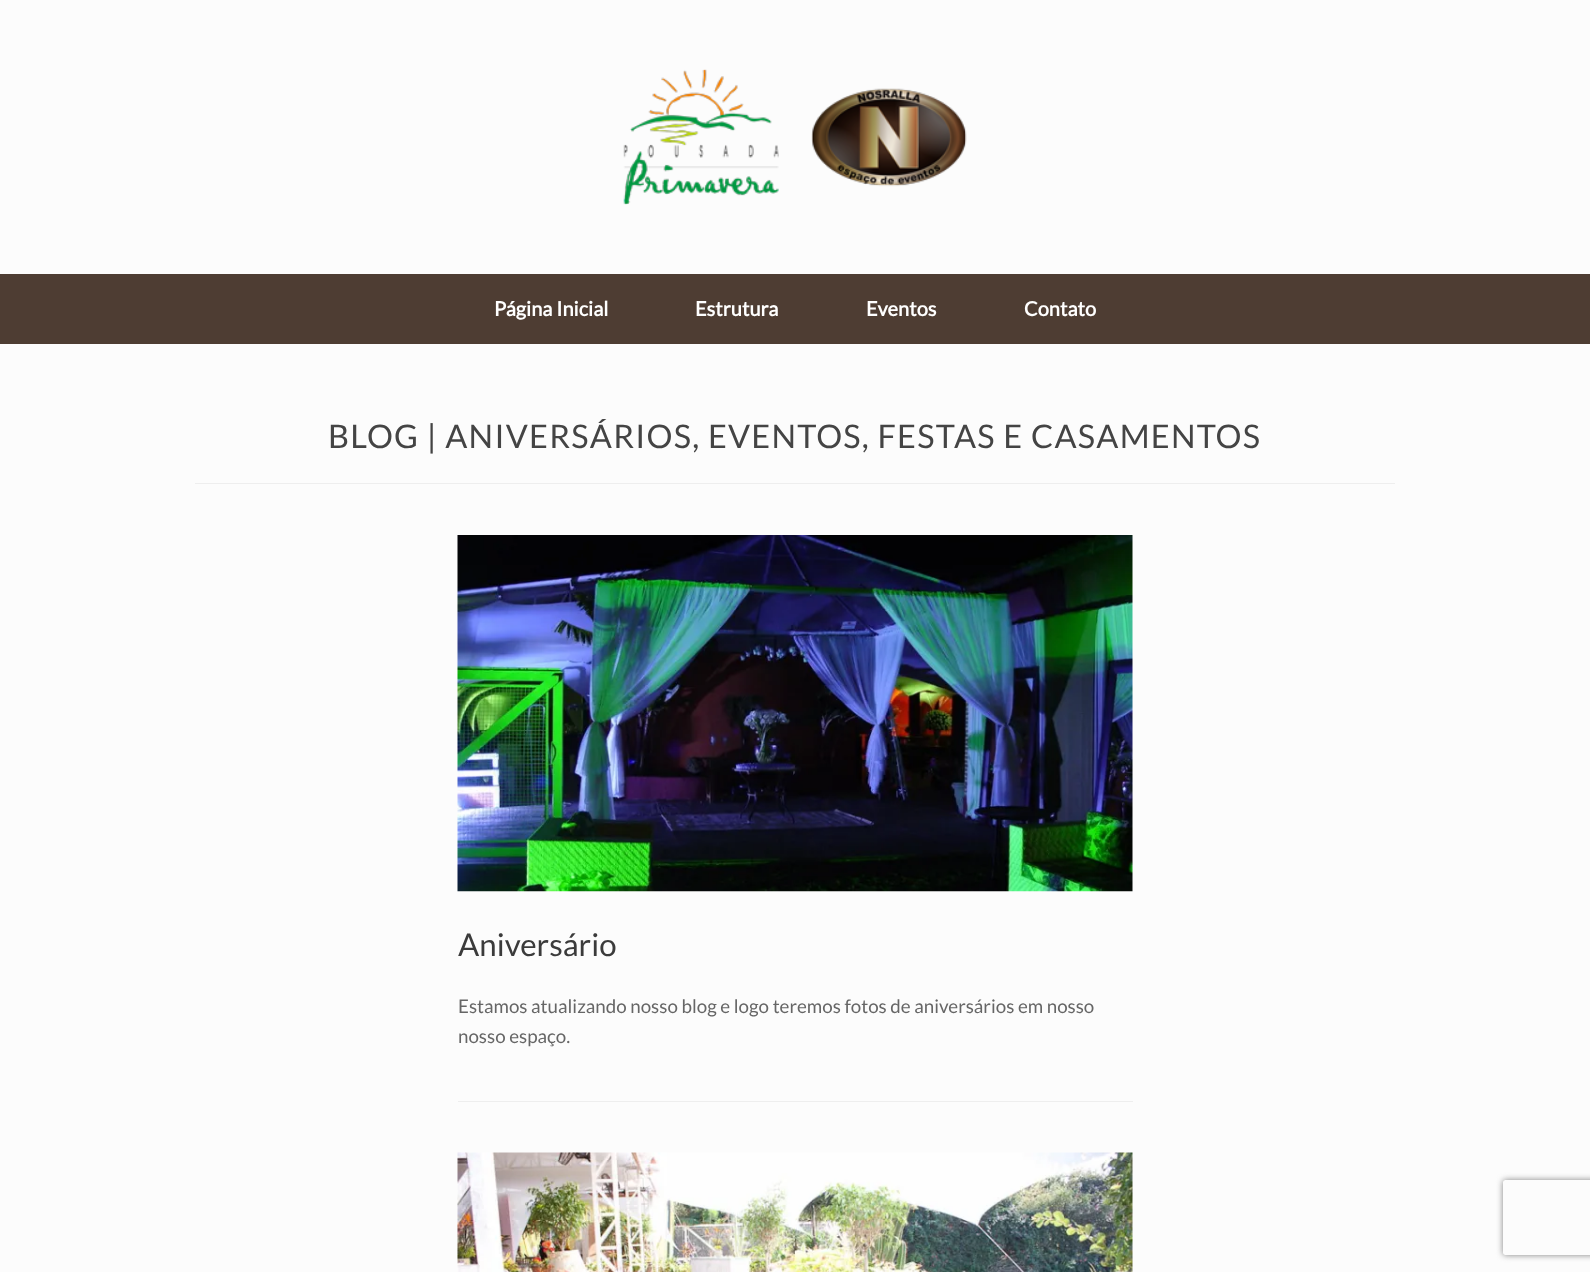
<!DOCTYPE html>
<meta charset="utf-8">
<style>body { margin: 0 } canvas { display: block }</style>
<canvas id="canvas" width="1590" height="1272"></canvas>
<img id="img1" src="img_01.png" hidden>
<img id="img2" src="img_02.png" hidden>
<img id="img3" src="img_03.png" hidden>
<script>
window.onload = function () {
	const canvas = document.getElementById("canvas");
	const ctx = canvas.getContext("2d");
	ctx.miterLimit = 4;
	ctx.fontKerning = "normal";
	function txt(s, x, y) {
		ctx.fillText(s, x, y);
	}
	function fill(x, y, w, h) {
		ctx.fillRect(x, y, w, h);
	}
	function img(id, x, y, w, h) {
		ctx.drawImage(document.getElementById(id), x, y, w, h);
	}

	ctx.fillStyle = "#FCFCFC";
	fill(0, 0, 1590, 1272);
	img("img1", 623, 69, 344, 136);
	ctx.fillStyle = "#4E3D33";
	fill(0, 274, 1590, 70);
	ctx.fillStyle = "#EEEEEE";
	fill(195, 483, 1200, 1);
	fill(458, 1101, 675, 1);
	img("img2", 457, 535, 676, 357);
	img("img3", 457, 1152, 676, 120);
	ctx.save();
	ctx.beginPath();
	ctx.moveTo(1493, 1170);
	ctx.lineTo(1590, 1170);
	ctx.lineTo(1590, 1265);
	ctx.lineTo(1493, 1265);
	ctx.closePath();
	ctx.moveTo(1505.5, 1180);
	ctx.lineTo(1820.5, 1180);
	ctx.bezierCurveTo(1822, 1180, 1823, 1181, 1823, 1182.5);
	ctx.lineTo(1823, 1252.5);
	ctx.bezierCurveTo(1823, 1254, 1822, 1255, 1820.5, 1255);
	ctx.lineTo(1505.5, 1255);
	ctx.bezierCurveTo(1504, 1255, 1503, 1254, 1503, 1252.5);
	ctx.lineTo(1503, 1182.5);
	ctx.bezierCurveTo(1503, 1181, 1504, 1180, 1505.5, 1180);
	ctx.closePath();
	ctx.clip("evenodd");
	ctx.fillStyle = "#808080";
	ctx.filter = "blur(3px)";
	ctx.beginPath();
	ctx.roundRect(1503, 1180, 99, 75, 2.5);
	ctx.fill();
	ctx.filter = "none";
	ctx.restore();
	ctx.font = "bold 20px Lato";
	ctx.fillStyle = "#FFFFFF";
	txt("Página Inicial", 494, 316);
	txt("Estrutura", 695, 316);
	txt("Eventos", 866, 316);
	txt("Contato", 1024, 316);
	ctx.letterSpacing = "1.25px";
	ctx.font = "32.5px Lato";
	ctx.fillStyle = "#444444";
	txt("BLOG | ANIVERSÁRIOS, EVENTOS, FESTAS E CASAMENTOS", 328, 448);
	ctx.letterSpacing = "0px";
	ctx.font = "31.25px Lato";
	ctx.fillStyle = "#3B3B3B";
	txt("Aniversário", 458, 956);
	ctx.font = "18.75px Lato";
	ctx.fillStyle = "#666666";
	txt("Estamos atualizando nosso blog e logo teremos fotos de aniversários em nosso", 458, 1013);
	txt("nosso espaço.", 458, 1043);
};
</script>
